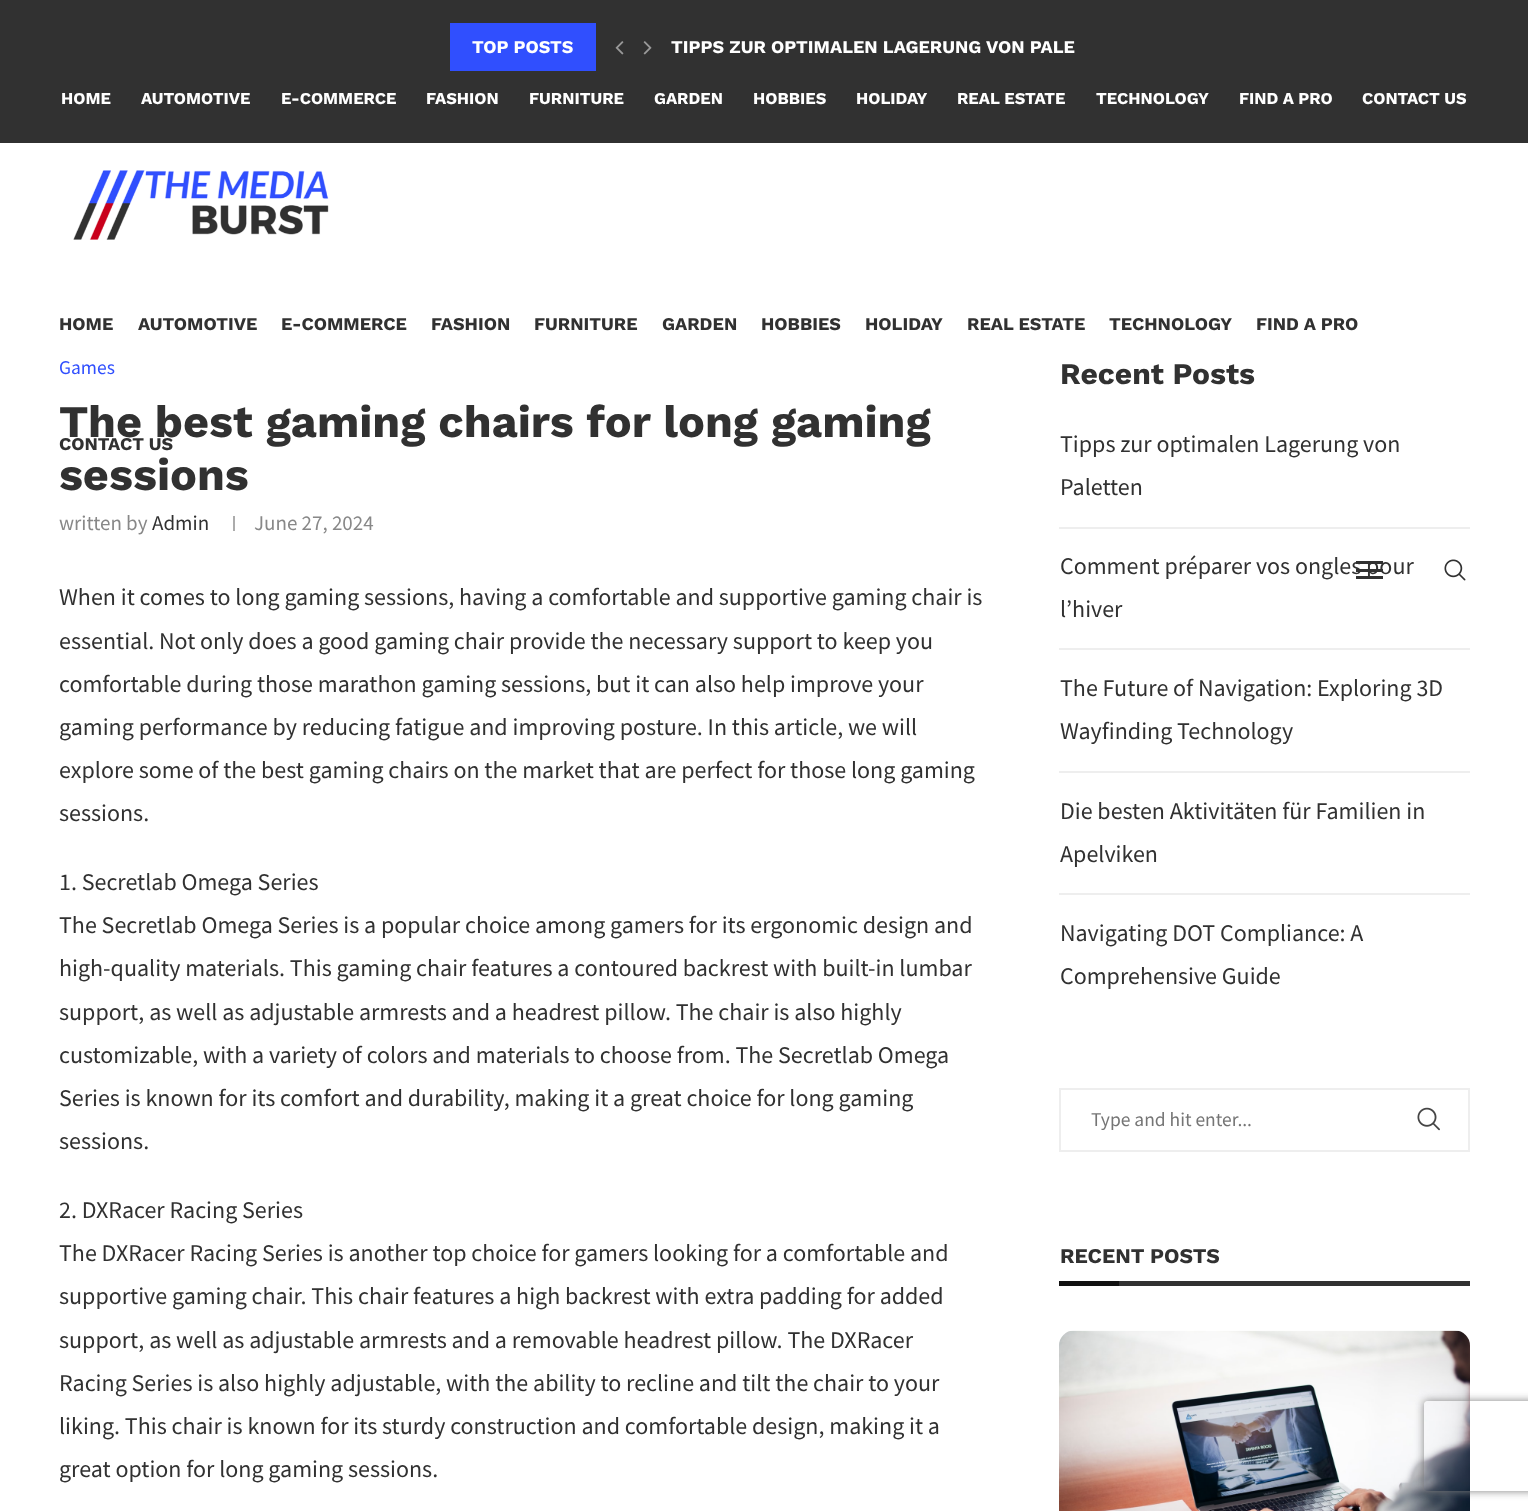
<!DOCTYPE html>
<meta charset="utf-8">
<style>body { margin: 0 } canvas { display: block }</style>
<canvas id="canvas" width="1528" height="1511"></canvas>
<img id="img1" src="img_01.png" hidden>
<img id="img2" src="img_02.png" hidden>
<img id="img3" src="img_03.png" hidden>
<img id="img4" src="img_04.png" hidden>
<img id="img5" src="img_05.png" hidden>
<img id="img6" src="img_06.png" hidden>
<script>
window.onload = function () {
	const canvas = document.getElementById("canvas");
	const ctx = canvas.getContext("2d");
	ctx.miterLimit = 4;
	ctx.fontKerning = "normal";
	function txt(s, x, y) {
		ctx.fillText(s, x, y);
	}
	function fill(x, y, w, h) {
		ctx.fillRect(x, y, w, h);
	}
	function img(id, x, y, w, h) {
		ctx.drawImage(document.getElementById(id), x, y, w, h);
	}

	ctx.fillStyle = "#FFFFFF";
	fill(0, 0, 1528, 1511);
	ctx.fillStyle = "#313131";
	fill(0, 0, 1528, 143);
	ctx.fillStyle = "#304FFE";
	fill(450, 23, 146, 48);
	img("img1", 615, 41, 9, 14);
	img("img2", 643, 41, 9, 14);
	img("img3", 73, 170, 256, 70);
	ctx.fillStyle = "#313131";
	fill(1356, 561, 27, 3);
	fill(1356, 576, 27, 3);
	fill(1356, 569, 27, 3);
	img("img4", 1444, 559, 22, 22);
	ctx.fillStyle = "#ACACAC";
	fill(233, 516, 2, 15);
	ctx.fillStyle = "#EEEEEE";
	fill(1059, 527, 411, 2);
	fill(1059, 648, 411, 2);
	fill(1059, 771, 411, 2);
	fill(1059, 893, 411, 2);
	ctx.strokeStyle = "#EEEEEE";
	ctx.lineWidth = 2;
	ctx.strokeRect(1060, 1089, 409, 62);
	img("img5", 1417, 1107, 23, 24);
	ctx.fillStyle = "#313131";
	fill(1119, 1281, 351, 5);
	ctx.fillStyle = "#111111";
	fill(1059, 1281, 60, 5);
	img("img6", 1059, 1330, 411, 181);
	ctx.save();
	ctx.beginPath();
	ctx.moveTo(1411, 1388);
	ctx.lineTo(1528, 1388);
	ctx.lineTo(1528, 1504);
	ctx.lineTo(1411, 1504);
	ctx.closePath();
	ctx.moveTo(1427, 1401);
	ctx.lineTo(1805, 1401);
	ctx.bezierCurveTo(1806.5, 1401, 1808, 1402.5, 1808, 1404);
	ctx.lineTo(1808, 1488);
	ctx.bezierCurveTo(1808, 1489.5, 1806.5, 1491, 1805, 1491);
	ctx.lineTo(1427, 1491);
	ctx.bezierCurveTo(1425.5, 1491, 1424, 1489.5, 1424, 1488);
	ctx.lineTo(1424, 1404);
	ctx.bezierCurveTo(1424, 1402.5, 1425.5, 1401, 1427, 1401);
	ctx.closePath();
	ctx.clip("evenodd");
	ctx.fillStyle = "#808080";
	ctx.filter = "blur(4px)";
	ctx.beginPath();
	ctx.roundRect(1424, 1401, 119, 90, 3);
	ctx.fill();
	ctx.filter = "none";
	ctx.restore();
	ctx.font = "bold 18px Work Sans";
	ctx.fillStyle = "#FFFFFF";
	txt("TOP POSTS", 472, 53);
	txt("TIPPS ZUR OPTIMALEN LAGERUNG VON PALE", 671, 53);
	ctx.font = "bold 16.5px Work Sans";
	txt("HOME", 61, 104);
	txt("AUTOMOTIVE", 141, 104);
	txt("E-COMMERCE", 281, 104);
	txt("FASHION", 426, 104);
	txt("FURNITURE", 529, 104);
	txt("GARDEN", 654, 104);
	txt("HOBBIES", 753, 104);
	txt("HOLIDAY", 856, 104);
	txt("REAL ESTATE", 957, 104);
	txt("TECHNOLOGY", 1096, 104);
	txt("FIND A PRO", 1239, 104);
	txt("CONTACT US", 1362, 104);
	ctx.font = "bold 18px Work Sans";
	ctx.fillStyle = "#313131";
	txt("HOME", 59, 330);
	txt("AUTOMOTIVE", 138, 330);
	txt("E-COMMERCE", 281, 330);
	txt("FASHION", 431, 330);
	txt("FURNITURE", 534, 330);
	txt("GARDEN", 662, 330);
	txt("HOBBIES", 761, 330);
	txt("HOLIDAY", 865, 330);
	txt("REAL ESTATE", 967, 330);
	txt("TECHNOLOGY", 1109, 330);
	txt("FIND A PRO", 1256, 330);
	txt("CONTACT US", 59, 450);
	ctx.font = "19.5px Source Sans Pro";
	ctx.fillStyle = "#304FFE";
	txt("Games", 59, 374);
	ctx.font = "bold 45px Work Sans";
	ctx.fillStyle = "#313131";
	txt("The best gaming chairs for long gaming", 59, 437);
	txt("sessions", 59, 490);
	ctx.font = "21px Source Sans Pro";
	ctx.fillStyle = "#888888";
	txt("written by", 59, 530);
	ctx.fillStyle = "#313131";
	txt("Admin", 152, 530);
	ctx.fillStyle = "#888888";
	txt("June 27, 2024", 254, 530);
	ctx.font = "24px Source Sans Pro";
	ctx.fillStyle = "#313131";
	txt("When it comes to long gaming sessions, having a comfortable and supportive gaming chair is", 59, 605);
	txt("essential. Not only does a good gaming chair provide the necessary support to keep you", 59, 649);
	txt("comfortable during those marathon gaming sessions, but it can also help improve your", 59, 692);
	txt("gaming performance by reducing fatigue and improving posture. In this article, we will", 59, 735);
	txt("explore some of the best gaming chairs on the market that are perfect for those long gaming", 59, 778);
	txt("sessions.", 59, 821);
	txt("1. Secretlab Omega Series", 59, 890);
	txt("The Secretlab Omega Series is a popular choice among gamers for its ergonomic design and", 59, 933);
	txt("high-quality materials. This gaming chair features a contoured backrest with built-in lumbar", 59, 976);
	txt("support, as well as adjustable armrests and a headrest pillow. The chair is also highly", 59, 1020);
	txt("customizable, with a variety of colors and materials to choose from. The Secretlab Omega", 59, 1063);
	txt("Series is known for its comfort and durability, making it a great choice for long gaming", 59, 1106);
	txt("sessions.", 59, 1149);
	txt("2. DXRacer Racing Series", 59, 1218);
	txt("The DXRacer Racing Series is another top choice for gamers looking for a comfortable and", 59, 1261);
	txt("supportive gaming chair. This chair features a high backrest with extra padding for added", 59, 1304);
	txt("support, as well as adjustable armrests and a removable headrest pillow. The DXRacer", 59, 1348);
	txt("Racing Series is also highly adjustable, with the ability to recline and tilt the chair to your", 59, 1391);
	txt("liking. This chair is known for its sturdy construction and comfortable design, making it a", 59, 1434);
	txt("great option for long gaming sessions.", 59, 1477);
	ctx.font = "bold 30px Work Sans";
	txt("Recent Posts", 1060, 384);
	ctx.font = "24px Source Sans Pro";
	txt("Tipps zur optimalen Lagerung von", 1060, 452);
	txt("Paletten", 1060, 495);
	txt("Comment préparer vos ongles pour", 1060, 574);
	txt("l’hiver", 1060, 617);
	txt("The Future of Navigation: Exploring 3D", 1060, 696);
	txt("Wayfinding Technology", 1060, 739);
	txt("Die besten Aktivitäten für Familien in", 1060, 819);
	txt("Apelviken", 1060, 862);
	txt("Navigating DOT Compliance: A", 1060, 941);
	txt("Comprehensive Guide", 1060, 984);
	ctx.font = "19.5px Source Sans Pro";
	ctx.fillStyle = "#757575";
	txt("Type and hit enter...", 1091, 1126);
	ctx.font = "bold 21px Work Sans";
	ctx.fillStyle = "#313131";
	txt("RECENT POSTS", 1060, 1263);
};
</script>
